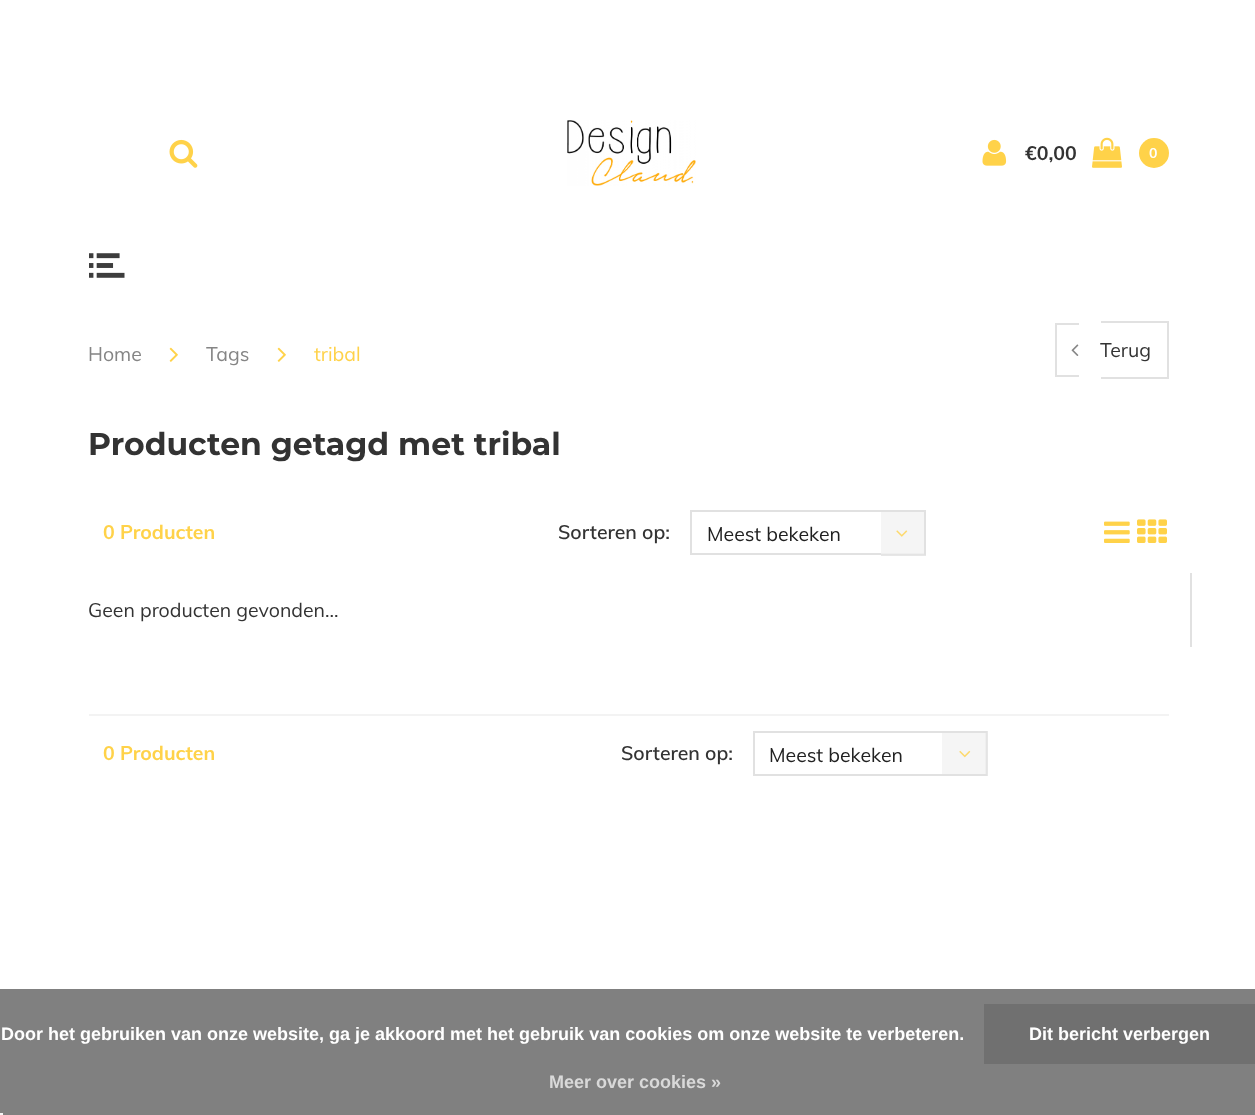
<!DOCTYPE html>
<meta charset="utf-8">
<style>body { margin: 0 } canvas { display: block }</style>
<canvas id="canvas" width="1255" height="1115"></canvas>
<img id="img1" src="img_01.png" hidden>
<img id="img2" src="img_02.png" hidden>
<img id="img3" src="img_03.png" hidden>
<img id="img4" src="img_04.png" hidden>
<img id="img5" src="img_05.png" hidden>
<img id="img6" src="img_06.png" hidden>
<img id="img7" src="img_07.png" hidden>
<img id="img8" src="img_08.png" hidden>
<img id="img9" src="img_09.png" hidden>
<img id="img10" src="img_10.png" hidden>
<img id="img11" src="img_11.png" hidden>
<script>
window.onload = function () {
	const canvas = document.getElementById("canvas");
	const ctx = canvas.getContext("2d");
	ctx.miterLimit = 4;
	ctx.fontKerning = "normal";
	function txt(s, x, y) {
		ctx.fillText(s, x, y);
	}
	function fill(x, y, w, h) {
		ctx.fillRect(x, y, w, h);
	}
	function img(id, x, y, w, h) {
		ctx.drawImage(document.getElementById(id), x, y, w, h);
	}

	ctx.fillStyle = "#FFFFFF";
	fill(0, 0, 1255, 1115);
	img("img1", 169, 139, 29, 29);
	img("img2", 567, 120, 129, 66);
	img("img3", 982, 139, 25, 27);
	img("img4", 1092, 137, 30, 31);
	ctx.fillStyle = "#FFD249";
	ctx.beginPath();
	ctx.arc(1154, 153, 15, 0, Math.PI * 2);
	ctx.fill();
	img("img5", 89, 253, 36, 25);
	img("img6", 169, 347, 9, 15);
	img("img6", 277, 347, 9, 15);
	ctx.fillStyle = "#E1E1E1";
	fill(1055, 323, 24, 2);
	fill(1055, 375, 24, 2);
	fill(1055, 323, 2, 54);
	fill(1101, 321, 68, 2);
	fill(1167, 321, 2, 57);
	fill(1101, 377, 68, 2);
	img("img7", 1071, 344, 8, 12);
	ctx.strokeStyle = "#E1E1E1";
	ctx.lineWidth = 2;
	ctx.strokeRect(691, 511, 234, 43);
	ctx.fillStyle = "rgba(243, 243, 243, 0.8)";
	fill(881, 512, 43, 43);
	ctx.fillStyle = "rgba(225, 225, 225, 0.8)";
	fill(881, 554, 45, 2);
	img("img8", 896, 530, 12, 7);
	img("img9", 1104, 521, 26, 22);
	img("img10", 1137, 519, 30, 24);
	ctx.fillStyle = "#E1E1E1";
	fill(1190, 573, 2, 74);
	ctx.fillStyle = "#F3F3F3";
	fill(89, 714, 1080, 2);
	ctx.strokeRect(754, 732, 232, 43);
	ctx.fillStyle = "rgba(243, 243, 243, 0.8)";
	fill(942, 733, 45, 41);
	ctx.fillStyle = "rgba(225, 225, 225, 0.8)";
	fill(986, 731, 2, 45);
	img("img11", 959, 750, 12, 8);
	ctx.fillStyle = "#808080";
	fill(0, 989, 1255, 126);
	ctx.fillStyle = "#707070";
	fill(984, 1004, 271, 60);
	ctx.fillStyle = "#F5F5F5";
	fill(0, 1113, 3, 2);
	ctx.font = "bold 19.5px Muli";
	ctx.fillStyle = "#333333";
	txt("€0,00", 1025, 160);
	ctx.font = "bold 14px Muli";
	ctx.fillStyle = "#FFFFFF";
	txt("0", 1149, 158);
	ctx.font = "19.5px Muli";
	ctx.fillStyle = "#858585";
	txt("Home", 88, 361);
	txt("Tags", 206, 361);
	ctx.fillStyle = "#FFD249";
	txt("tribal", 314, 361);
	ctx.fillStyle = "#333333";
	txt("Terug", 1100, 357);
	ctx.font = "bold 31.5px Montserrat";
	txt("Producten getagd met tribal", 88, 455);
	ctx.font = "bold 19.5px Muli";
	ctx.fillStyle = "#FFD249";
	txt("0 Producten", 103, 539);
	ctx.font = "600 19.5px Muli";
	ctx.fillStyle = "#333333";
	txt("Sorteren op:", 558, 539);
	ctx.font = "19.5px Muli";
	ctx.fillStyle = "#212121";
	txt("Meest bekeken", 707, 541);
	ctx.fillStyle = "#333333";
	txt("Geen producten gevonden...", 88, 617);
	ctx.font = "bold 19.5px Muli";
	ctx.fillStyle = "#FFD249";
	txt("0 Producten", 103, 760);
	ctx.font = "600 19.5px Muli";
	ctx.fillStyle = "#333333";
	txt("Sorteren op:", 621, 760);
	ctx.font = "19.5px Muli";
	ctx.fillStyle = "#212121";
	txt("Meest bekeken", 769, 762);
	ctx.font = "bold 18px Liberation Sans";
	ctx.fillStyle = "#FFFFFF";
	txt("Door het gebruiken van onze website, ga je akkoord met het gebruik van cookies om onze website te verbeteren.", 1, 1040);
	txt("Dit bericht verbergen", 1029, 1040);
	ctx.fillStyle = "#D9D9D9";
	txt("Meer over cookies »", 549, 1088);
};
</script>
